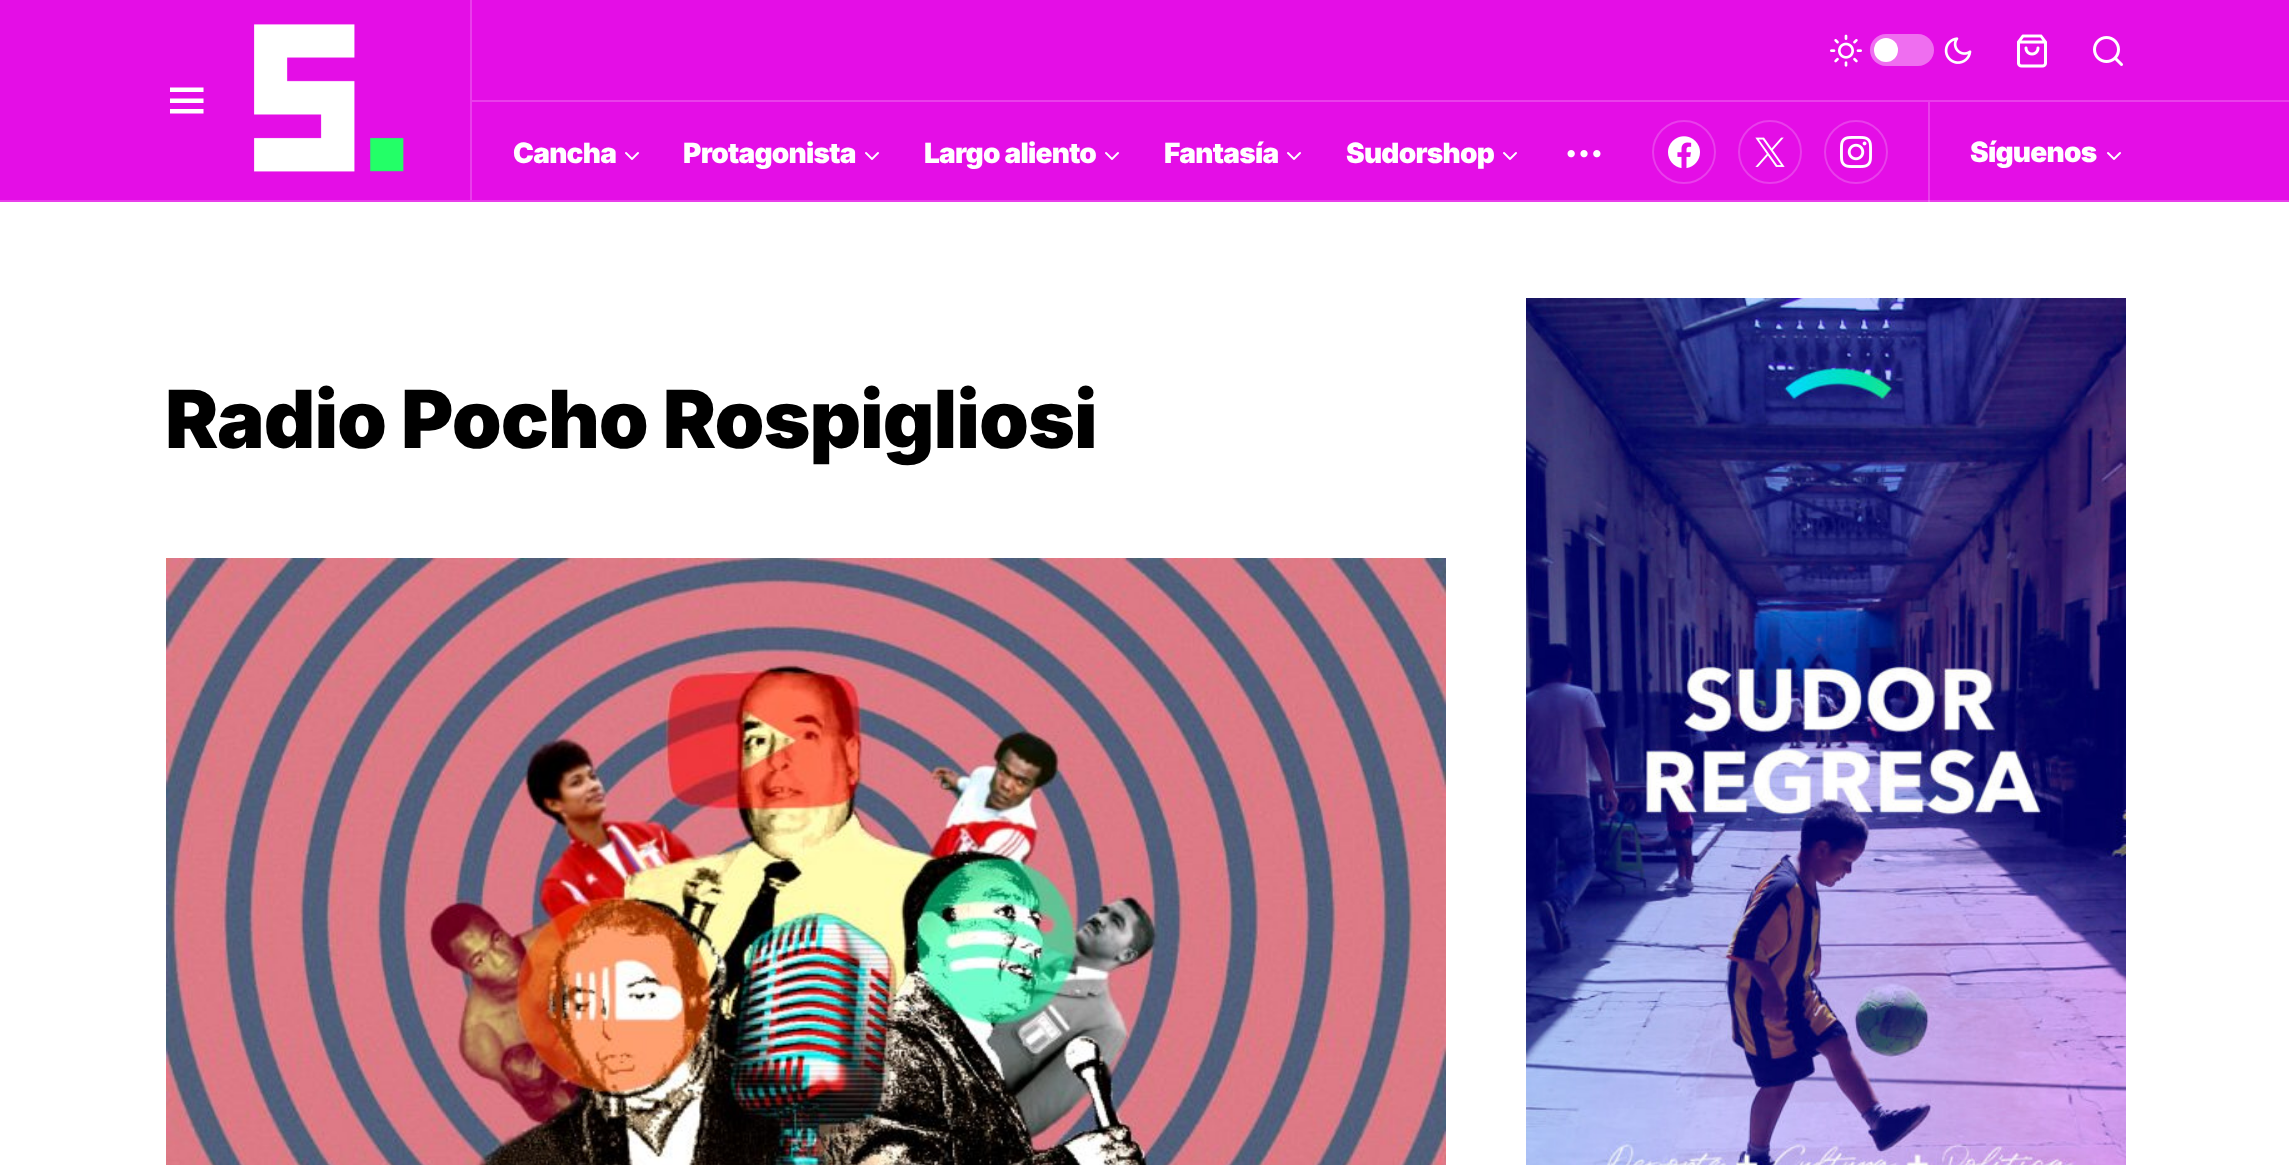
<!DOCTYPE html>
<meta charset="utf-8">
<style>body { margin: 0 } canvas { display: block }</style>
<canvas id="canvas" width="2289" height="1165"></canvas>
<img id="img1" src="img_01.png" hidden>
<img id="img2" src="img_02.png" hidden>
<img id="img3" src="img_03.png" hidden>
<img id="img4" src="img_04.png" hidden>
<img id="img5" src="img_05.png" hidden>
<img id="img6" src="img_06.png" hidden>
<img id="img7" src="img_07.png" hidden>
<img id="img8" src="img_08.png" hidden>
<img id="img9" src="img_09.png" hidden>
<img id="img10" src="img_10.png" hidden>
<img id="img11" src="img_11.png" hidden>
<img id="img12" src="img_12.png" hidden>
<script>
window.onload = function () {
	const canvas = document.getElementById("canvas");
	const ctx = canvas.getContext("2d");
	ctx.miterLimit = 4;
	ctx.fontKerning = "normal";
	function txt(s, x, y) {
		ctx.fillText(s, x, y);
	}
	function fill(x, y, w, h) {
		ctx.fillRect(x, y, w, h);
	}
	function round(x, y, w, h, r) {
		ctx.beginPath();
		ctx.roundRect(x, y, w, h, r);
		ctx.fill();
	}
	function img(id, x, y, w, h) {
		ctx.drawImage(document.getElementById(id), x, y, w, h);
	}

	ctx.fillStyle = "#FFFFFF";
	fill(0, 0, 2289, 1165);
	ctx.fillStyle = "#E40EE6";
	fill(0, 0, 2289, 200);
	ctx.fillStyle = "#E93EEB";
	fill(1928, 102, 2, 100);
	fill(0, 200, 2289, 2);
	ctx.fillStyle = "#ED65EF";
	fill(1928, 200, 2, 2);
	ctx.fillStyle = "#FFFFFF";
	ctx.beginPath();
	ctx.moveTo(170, 87.5);
	ctx.lineTo(203.5, 87.5);
	ctx.lineTo(203.5, 92);
	ctx.lineTo(170, 92);
	ctx.closePath();
	ctx.moveTo(170, 98.5);
	ctx.lineTo(203.5, 98.5);
	ctx.lineTo(203.5, 103);
	ctx.lineTo(170, 103);
	ctx.closePath();
	ctx.moveTo(170, 109);
	ctx.lineTo(203.5, 109);
	ctx.lineTo(203.5, 113.5);
	ctx.lineTo(170, 113.5);
	ctx.closePath();
	ctx.fill();
	ctx.fillStyle = "#E93EEB";
	fill(470, 0, 2, 200);
	img("img1", 254, 24, 150, 148);
	fill(472, 100, 1817, 2);
	img("img2", 1830, 34, 32, 33);
	ctx.fillStyle = "#EF6EF0";
	round(1870, 34, 64, 32, 16);
	ctx.fillStyle = "#FFFFFF";
	ctx.beginPath();
	ctx.arc(1886, 50, 12, 0, Math.PI * 2);
	ctx.fill();
	img("img3", 1944, 37, 28, 27);
	img("img4", 2017, 34, 30, 34);
	img("img5", 2093, 36, 30, 30);
	img("img6", 625, 152, 14, 8);
	img("img6", 865, 152, 14, 8);
	img("img6", 1105, 152, 14, 8);
	img("img6", 1287, 152, 14, 8);
	img("img6", 1503, 152, 14, 8);
	img("img7", 1567, 150, 34, 8);
	ctx.beginPath();
	ctx.arc(1684, 152, 31, 0, Math.PI * 2);
	ctx.strokeStyle = "#E93EEB";
	ctx.lineWidth = 2;
	ctx.stroke();
	img("img8", 1668, 136, 32, 32);
	ctx.beginPath();
	ctx.arc(1770, 152, 31, 0, Math.PI * 2);
	ctx.stroke();
	img("img9", 1755, 137, 30, 30);
	ctx.beginPath();
	ctx.arc(1856, 152, 31, 0, Math.PI * 2);
	ctx.stroke();
	img("img10", 1840, 136, 32, 32);
	img("img6", 2107, 152, 14, 8);
	img("img11", 166, 558, 1280, 607);
	img("img12", 1526, 298, 600, 867);
	ctx.letterSpacing = "-0.75px";
	ctx.font = "900 28px Inter";
	txt("Cancha", 513, 163);
	txt("Protagonista", 683, 163);
	txt("Largo aliento", 924, 163);
	txt("Fantasía", 1164, 163);
	txt("Sudorshop", 1346, 163);
	txt("Síguenos", 1970, 162);
	ctx.letterSpacing = "-1px";
	ctx.font = "900 80px Inter";
	ctx.fillStyle = "#000000";
	txt("Radio Pocho Rospigliosi", 165, 448);
};
</script>
